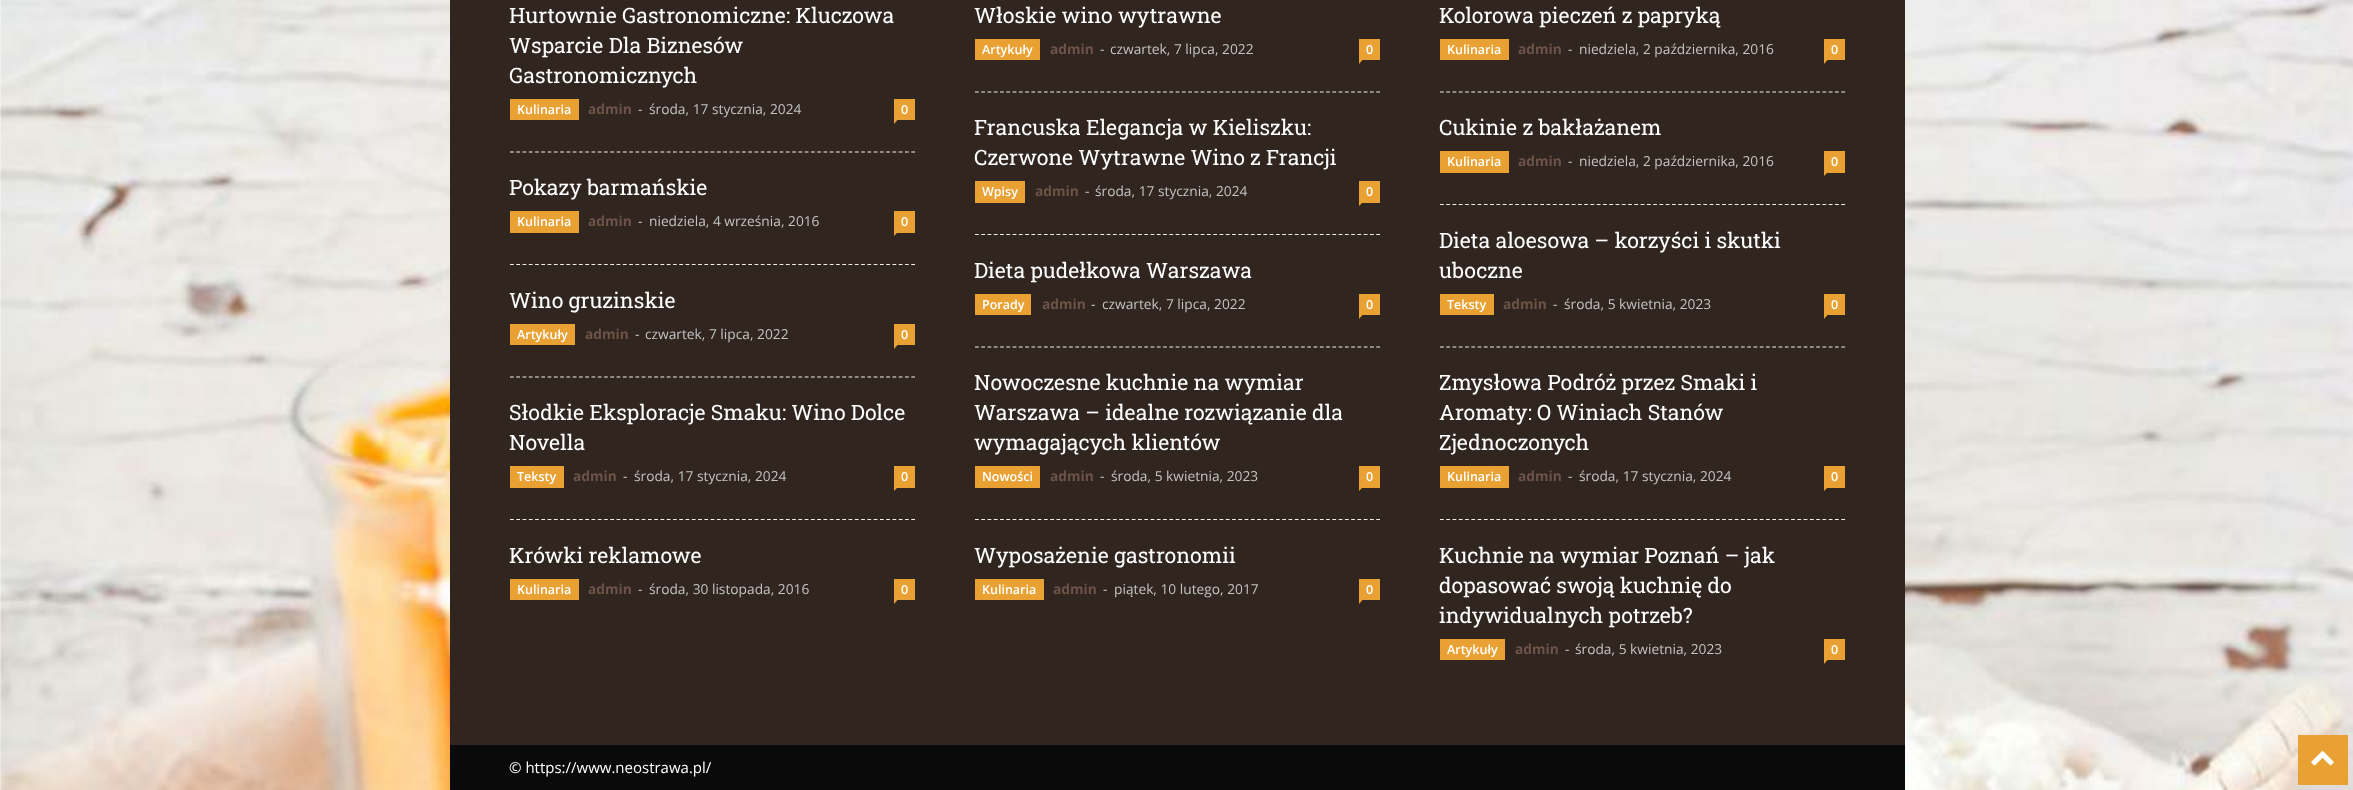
<!DOCTYPE html>
<meta charset="utf-8">
<style>body { margin: 0 } canvas { display: block }</style>
<canvas id="canvas" width="2353" height="790"></canvas>
<img id="img1" src="img_01.png" hidden>
<img id="img2" src="img_02.png" hidden>
<script>
window.onload = function () {
	const canvas = document.getElementById("canvas");
	const ctx = canvas.getContext("2d");
	ctx.miterLimit = 4;
	ctx.fontKerning = "normal";
	function txt(s, x, y) {
		ctx.fillText(s, x, y);
	}
	function fill(x, y, w, h) {
		ctx.fillRect(x, y, w, h);
	}
	function img(id, x, y, w, h) {
		ctx.drawImage(document.getElementById(id), x, y, w, h);
	}

	ctx.fillStyle = "#FFFFFF";
	fill(0, 0, 2353, 790);
	img("img1", 0, 0, 2353, 790);
	ctx.fillStyle = "#30251F";
	fill(450, 0, 1455, 745);
	ctx.beginPath();
	ctx.moveTo(510, 152);
	ctx.lineTo(915, 152);
	ctx.strokeStyle = "#F2F2F2";
	ctx.lineWidth = 1.2;
	ctx.setLineDash([3.75, 2.52]);
	ctx.stroke();
	ctx.fillStyle = "#EAA133";
	fill(510, 99, 69, 21);
	fill(894, 99, 21, 21);
	ctx.beginPath();
	ctx.moveTo(894, 120);
	ctx.lineTo(897.5, 120);
	ctx.lineTo(894, 124);
	ctx.closePath();
	ctx.fill();
	ctx.beginPath();
	ctx.moveTo(510, 264.5);
	ctx.lineTo(915, 264.5);
	ctx.stroke();
	fill(510, 211, 69, 22);
	fill(894, 211, 21, 22);
	ctx.beginPath();
	ctx.moveTo(894, 232.5);
	ctx.lineTo(897.5, 232.5);
	ctx.lineTo(894, 236);
	ctx.closePath();
	ctx.fill();
	ctx.beginPath();
	ctx.moveTo(510, 377);
	ctx.lineTo(915, 377);
	ctx.stroke();
	fill(510, 324, 65, 21);
	fill(894, 324, 21, 21);
	ctx.beginPath();
	ctx.moveTo(894, 345);
	ctx.lineTo(897.5, 345);
	ctx.lineTo(894, 349);
	ctx.closePath();
	ctx.fill();
	ctx.beginPath();
	ctx.moveTo(510, 519.5);
	ctx.lineTo(915, 519.5);
	ctx.stroke();
	fill(510, 466, 54, 22);
	fill(894, 466, 21, 22);
	ctx.beginPath();
	ctx.moveTo(894, 487.5);
	ctx.lineTo(897.5, 487.5);
	ctx.lineTo(894, 491);
	ctx.closePath();
	ctx.fill();
	fill(510, 579, 69, 21);
	fill(894, 579, 21, 21);
	ctx.beginPath();
	ctx.moveTo(894, 600);
	ctx.lineTo(897.5, 600);
	ctx.lineTo(894, 604);
	ctx.closePath();
	ctx.fill();
	ctx.beginPath();
	ctx.moveTo(975, 92);
	ctx.lineTo(1380, 92);
	ctx.stroke();
	fill(975, 39, 65, 21);
	fill(1359, 39, 21, 21);
	ctx.beginPath();
	ctx.moveTo(1359, 60);
	ctx.lineTo(1362.5, 60);
	ctx.lineTo(1359, 64);
	ctx.closePath();
	ctx.fill();
	ctx.beginPath();
	ctx.moveTo(975, 234.5);
	ctx.lineTo(1380, 234.5);
	ctx.stroke();
	fill(975, 181, 50, 22);
	fill(1359, 181, 21, 22);
	ctx.beginPath();
	ctx.moveTo(1359, 202.5);
	ctx.lineTo(1362.5, 202.5);
	ctx.lineTo(1359, 206);
	ctx.closePath();
	ctx.fill();
	ctx.beginPath();
	ctx.moveTo(975, 347);
	ctx.lineTo(1380, 347);
	ctx.stroke();
	fill(975, 294, 56, 21);
	fill(1359, 294, 21, 21);
	ctx.beginPath();
	ctx.moveTo(1359, 315);
	ctx.lineTo(1362.5, 315);
	ctx.lineTo(1359, 319);
	ctx.closePath();
	ctx.fill();
	ctx.beginPath();
	ctx.moveTo(975, 519.5);
	ctx.lineTo(1380, 519.5);
	ctx.stroke();
	fill(975, 466, 65, 22);
	fill(1359, 466, 21, 22);
	ctx.beginPath();
	ctx.moveTo(1359, 487.5);
	ctx.lineTo(1362.5, 487.5);
	ctx.lineTo(1359, 491);
	ctx.closePath();
	ctx.fill();
	fill(975, 579, 69, 21);
	fill(1359, 579, 21, 21);
	ctx.beginPath();
	ctx.moveTo(1359, 600);
	ctx.lineTo(1362.5, 600);
	ctx.lineTo(1359, 604);
	ctx.closePath();
	ctx.fill();
	ctx.beginPath();
	ctx.moveTo(1440, 92);
	ctx.lineTo(1845, 92);
	ctx.stroke();
	fill(1440, 39, 69, 21);
	fill(1824, 39, 21, 21);
	ctx.beginPath();
	ctx.moveTo(1824, 60);
	ctx.lineTo(1827.5, 60);
	ctx.lineTo(1824, 64);
	ctx.closePath();
	ctx.fill();
	ctx.beginPath();
	ctx.moveTo(1440, 204.5);
	ctx.lineTo(1845, 204.5);
	ctx.stroke();
	fill(1440, 151, 69, 22);
	fill(1824, 151, 21, 22);
	ctx.beginPath();
	ctx.moveTo(1824, 172.5);
	ctx.lineTo(1827.5, 172.5);
	ctx.lineTo(1824, 176);
	ctx.closePath();
	ctx.fill();
	ctx.beginPath();
	ctx.moveTo(1440, 347);
	ctx.lineTo(1845, 347);
	ctx.stroke();
	fill(1440, 294, 54, 21);
	fill(1824, 294, 21, 21);
	ctx.beginPath();
	ctx.moveTo(1824, 315);
	ctx.lineTo(1827.5, 315);
	ctx.lineTo(1824, 319);
	ctx.closePath();
	ctx.fill();
	ctx.beginPath();
	ctx.moveTo(1440, 519.5);
	ctx.lineTo(1845, 519.5);
	ctx.stroke();
	fill(1440, 466, 69, 22);
	fill(1824, 466, 21, 22);
	ctx.beginPath();
	ctx.moveTo(1824, 487.5);
	ctx.lineTo(1827.5, 487.5);
	ctx.lineTo(1824, 491);
	ctx.closePath();
	ctx.fill();
	fill(1440, 639, 65, 21);
	fill(1824, 639, 21, 21);
	ctx.beginPath();
	ctx.moveTo(1824, 660);
	ctx.lineTo(1827.5, 660);
	ctx.lineTo(1824, 664);
	ctx.closePath();
	ctx.fill();
	ctx.fillStyle = "#0A0A0A";
	fill(450, 745, 1455, 45);
	ctx.fillStyle = "#EAA133";
	fill(2298, 735, 50, 50);
	img("img2", 2311, 751, 23, 15);
	ctx.font = "21.25px Roboto Slab";
	ctx.fillStyle = "#FFFFFF";
	txt("Hurtownie Gastronomiczne: Kluczowa", 509, 23);
	txt("Wsparcie Dla Biznesów", 509, 53);
	txt("Gastronomicznych", 509, 83);
	ctx.font = "600 12.5px Open Sans";
	txt("Kulinaria", 517, 114);
	ctx.font = "bold 13.75px Open Sans";
	ctx.fillStyle = "#6D5348";
	txt("admin", 588, 114);
	ctx.font = "13.75px Open Sans";
	ctx.fillStyle = "#CCCCCC";
	txt("-", 638, 114);
	ctx.fillStyle = "#C3C3C3";
	txt("środa, 17 stycznia, 2024", 649, 114);
	ctx.font = "600 12.5px Open Sans";
	ctx.fillStyle = "#FFFFFF";
	txt("0", 901, 114);
	ctx.font = "21.25px Roboto Slab";
	txt("Pokazy barmańskie", 509, 195);
	ctx.font = "600 12.5px Open Sans";
	txt("Kulinaria", 517, 226);
	ctx.font = "bold 13.75px Open Sans";
	ctx.fillStyle = "#6D5348";
	txt("admin", 588, 226);
	ctx.font = "13.75px Open Sans";
	ctx.fillStyle = "#CCCCCC";
	txt("-", 638, 226);
	ctx.fillStyle = "#C3C3C3";
	txt("niedziela, 4 września, 2016", 649, 226);
	ctx.font = "600 12.5px Open Sans";
	ctx.fillStyle = "#FFFFFF";
	txt("0", 901, 226);
	ctx.font = "21.25px Roboto Slab";
	txt("Wino gruzinskie", 509, 308);
	ctx.font = "600 12.5px Open Sans";
	txt("Artykuły", 517, 339);
	ctx.font = "bold 13.75px Open Sans";
	ctx.fillStyle = "#6D5348";
	txt("admin", 585, 339);
	ctx.font = "13.75px Open Sans";
	ctx.fillStyle = "#CCCCCC";
	txt("-", 635, 339);
	ctx.fillStyle = "#C3C3C3";
	txt("czwartek, 7 lipca, 2022", 645, 339);
	ctx.font = "600 12.5px Open Sans";
	ctx.fillStyle = "#FFFFFF";
	txt("0", 901, 339);
	ctx.font = "21.25px Roboto Slab";
	txt("Słodkie Eksploracje Smaku: Wino Dolce", 509, 420);
	txt("Novella", 509, 450);
	ctx.font = "600 12.5px Open Sans";
	txt("Teksty", 517, 481);
	ctx.font = "bold 13.75px Open Sans";
	ctx.fillStyle = "#6D5348";
	txt("admin", 573, 481);
	ctx.font = "13.75px Open Sans";
	ctx.fillStyle = "#CCCCCC";
	txt("-", 623, 481);
	ctx.fillStyle = "#C3C3C3";
	txt("środa, 17 stycznia, 2024", 634, 481);
	ctx.font = "600 12.5px Open Sans";
	ctx.fillStyle = "#FFFFFF";
	txt("0", 901, 481);
	ctx.font = "21.25px Roboto Slab";
	txt("Krówki reklamowe", 509, 563);
	ctx.font = "600 12.5px Open Sans";
	txt("Kulinaria", 517, 594);
	ctx.font = "bold 13.75px Open Sans";
	ctx.fillStyle = "#6D5348";
	txt("admin", 588, 594);
	ctx.font = "13.75px Open Sans";
	ctx.fillStyle = "#CCCCCC";
	txt("-", 638, 594);
	ctx.fillStyle = "#C3C3C3";
	txt("środa, 30 listopada, 2016", 649, 594);
	ctx.font = "600 12.5px Open Sans";
	ctx.fillStyle = "#FFFFFF";
	txt("0", 901, 594);
	ctx.font = "21.25px Roboto Slab";
	txt("Włoskie wino wytrawne", 974, 23);
	ctx.font = "600 12.5px Open Sans";
	txt("Artykuły", 982, 54);
	ctx.font = "bold 13.75px Open Sans";
	ctx.fillStyle = "#6D5348";
	txt("admin", 1050, 54);
	ctx.font = "13.75px Open Sans";
	ctx.fillStyle = "#CCCCCC";
	txt("-", 1100, 54);
	ctx.fillStyle = "#C3C3C3";
	txt("czwartek, 7 lipca, 2022", 1110, 54);
	ctx.font = "600 12.5px Open Sans";
	ctx.fillStyle = "#FFFFFF";
	txt("0", 1366, 54);
	ctx.font = "21.25px Roboto Slab";
	txt("Francuska Elegancja w Kieliszku:", 974, 135);
	txt("Czerwone Wytrawne Wino z Francji", 974, 165);
	ctx.font = "600 12.5px Open Sans";
	txt("Wpisy", 982, 196);
	ctx.font = "bold 13.75px Open Sans";
	ctx.fillStyle = "#6D5348";
	txt("admin", 1035, 196);
	ctx.font = "13.75px Open Sans";
	ctx.fillStyle = "#CCCCCC";
	txt("-", 1085, 196);
	ctx.fillStyle = "#C3C3C3";
	txt("środa, 17 stycznia, 2024", 1095, 196);
	ctx.font = "600 12.5px Open Sans";
	ctx.fillStyle = "#FFFFFF";
	txt("0", 1366, 196);
	ctx.font = "21.25px Roboto Slab";
	txt("Dieta pudełkowa Warszawa", 974, 278);
	ctx.font = "600 12.5px Open Sans";
	txt("Porady", 982, 309);
	ctx.font = "bold 13.75px Open Sans";
	ctx.fillStyle = "#6D5348";
	txt("admin", 1042, 309);
	ctx.font = "13.75px Open Sans";
	ctx.fillStyle = "#CCCCCC";
	txt("-", 1091, 309);
	ctx.fillStyle = "#C3C3C3";
	txt("czwartek, 7 lipca, 2022", 1102, 309);
	ctx.font = "600 12.5px Open Sans";
	ctx.fillStyle = "#FFFFFF";
	txt("0", 1366, 309);
	ctx.font = "21.25px Roboto Slab";
	txt("Nowoczesne kuchnie na wymiar", 974, 390);
	txt("Warszawa – idealne rozwiązanie dla", 974, 420);
	txt("wymagających klientów", 974, 450);
	ctx.font = "600 12.5px Open Sans";
	txt("Nowości", 982, 481);
	ctx.font = "bold 13.75px Open Sans";
	ctx.fillStyle = "#6D5348";
	txt("admin", 1050, 481);
	ctx.font = "13.75px Open Sans";
	ctx.fillStyle = "#CCCCCC";
	txt("-", 1100, 481);
	ctx.fillStyle = "#C3C3C3";
	txt("środa, 5 kwietnia, 2023", 1111, 481);
	ctx.font = "600 12.5px Open Sans";
	ctx.fillStyle = "#FFFFFF";
	txt("0", 1366, 481);
	ctx.font = "21.25px Roboto Slab";
	txt("Wyposażenie gastronomii", 974, 563);
	ctx.font = "600 12.5px Open Sans";
	txt("Kulinaria", 982, 594);
	ctx.font = "bold 13.75px Open Sans";
	ctx.fillStyle = "#6D5348";
	txt("admin", 1053, 594);
	ctx.font = "13.75px Open Sans";
	ctx.fillStyle = "#CCCCCC";
	txt("-", 1103, 594);
	ctx.fillStyle = "#C3C3C3";
	txt("piątek, 10 lutego, 2017", 1114, 594);
	ctx.font = "600 12.5px Open Sans";
	ctx.fillStyle = "#FFFFFF";
	txt("0", 1366, 594);
	ctx.font = "21.25px Roboto Slab";
	txt("Kolorowa pieczeń z papryką", 1439, 23);
	ctx.font = "600 12.5px Open Sans";
	txt("Kulinaria", 1447, 54);
	ctx.font = "bold 13.75px Open Sans";
	ctx.fillStyle = "#6D5348";
	txt("admin", 1518, 54);
	ctx.font = "13.75px Open Sans";
	ctx.fillStyle = "#CCCCCC";
	txt("-", 1568, 54);
	ctx.fillStyle = "#C3C3C3";
	txt("niedziela, 2 października, 2016", 1579, 54);
	ctx.font = "600 12.5px Open Sans";
	ctx.fillStyle = "#FFFFFF";
	txt("0", 1831, 54);
	ctx.font = "21.25px Roboto Slab";
	txt("Cukinie z bakłażanem", 1439, 135);
	ctx.font = "600 12.5px Open Sans";
	txt("Kulinaria", 1447, 166);
	ctx.font = "bold 13.75px Open Sans";
	ctx.fillStyle = "#6D5348";
	txt("admin", 1518, 166);
	ctx.font = "13.75px Open Sans";
	ctx.fillStyle = "#CCCCCC";
	txt("-", 1568, 166);
	ctx.fillStyle = "#C3C3C3";
	txt("niedziela, 2 października, 2016", 1579, 166);
	ctx.font = "600 12.5px Open Sans";
	ctx.fillStyle = "#FFFFFF";
	txt("0", 1831, 166);
	ctx.font = "21.25px Roboto Slab";
	txt("Dieta aloesowa – korzyści i skutki", 1439, 248);
	txt("uboczne", 1439, 278);
	ctx.font = "600 12.5px Open Sans";
	txt("Teksty", 1447, 309);
	ctx.font = "bold 13.75px Open Sans";
	ctx.fillStyle = "#6D5348";
	txt("admin", 1503, 309);
	ctx.font = "13.75px Open Sans";
	ctx.fillStyle = "#CCCCCC";
	txt("-", 1553, 309);
	ctx.fillStyle = "#C3C3C3";
	txt("środa, 5 kwietnia, 2023", 1564, 309);
	ctx.font = "600 12.5px Open Sans";
	ctx.fillStyle = "#FFFFFF";
	txt("0", 1831, 309);
	ctx.font = "21.25px Roboto Slab";
	txt("Zmysłowa Podróż przez Smaki i", 1439, 390);
	txt("Aromaty: O Winiach Stanów", 1439, 420);
	txt("Zjednoczonych", 1439, 450);
	ctx.font = "600 12.5px Open Sans";
	txt("Kulinaria", 1447, 481);
	ctx.font = "bold 13.75px Open Sans";
	ctx.fillStyle = "#6D5348";
	txt("admin", 1518, 481);
	ctx.font = "13.75px Open Sans";
	ctx.fillStyle = "#CCCCCC";
	txt("-", 1568, 481);
	ctx.fillStyle = "#C3C3C3";
	txt("środa, 17 stycznia, 2024", 1579, 481);
	ctx.font = "600 12.5px Open Sans";
	ctx.fillStyle = "#FFFFFF";
	txt("0", 1831, 481);
	ctx.font = "21.25px Roboto Slab";
	txt("Kuchnie na wymiar Poznań – jak", 1439, 563);
	txt("dopasować swoją kuchnię do", 1439, 593);
	txt("indywidualnych potrzeb?", 1439, 623);
	ctx.font = "600 12.5px Open Sans";
	txt("Artykuły", 1447, 654);
	ctx.font = "bold 13.75px Open Sans";
	ctx.fillStyle = "#6D5348";
	txt("admin", 1515, 654);
	ctx.font = "13.75px Open Sans";
	ctx.fillStyle = "#CCCCCC";
	txt("-", 1565, 654);
	ctx.fillStyle = "#C3C3C3";
	txt("środa, 5 kwietnia, 2023", 1575, 654);
	ctx.font = "600 12.5px Open Sans";
	ctx.fillStyle = "#FFFFFF";
	txt("0", 1831, 654);
	ctx.font = "15px Open Sans";
	txt("© https://www.neostrawa.pl/", 509, 773);
};
</script>
